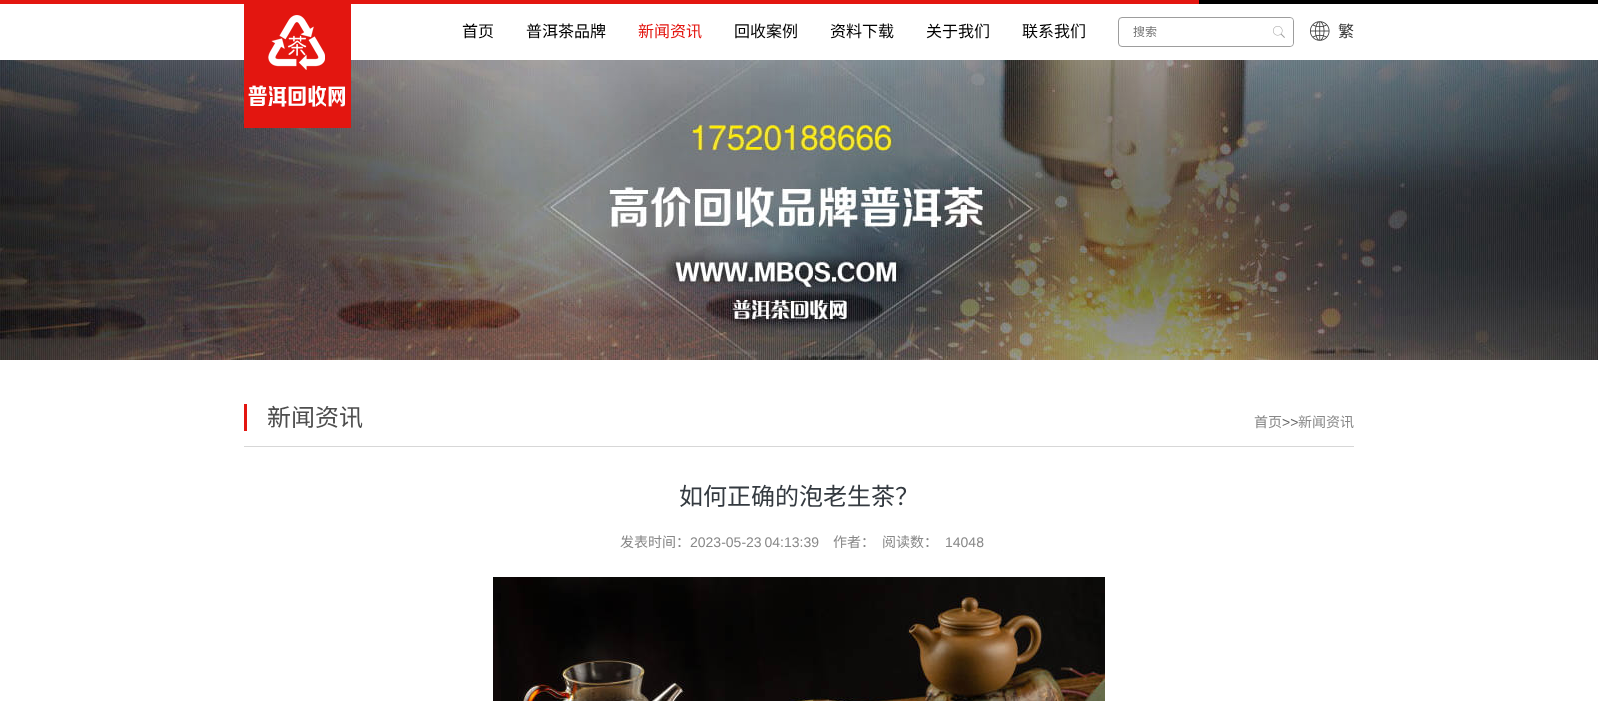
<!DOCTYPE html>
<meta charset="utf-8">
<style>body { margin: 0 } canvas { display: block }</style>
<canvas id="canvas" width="1598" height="701"></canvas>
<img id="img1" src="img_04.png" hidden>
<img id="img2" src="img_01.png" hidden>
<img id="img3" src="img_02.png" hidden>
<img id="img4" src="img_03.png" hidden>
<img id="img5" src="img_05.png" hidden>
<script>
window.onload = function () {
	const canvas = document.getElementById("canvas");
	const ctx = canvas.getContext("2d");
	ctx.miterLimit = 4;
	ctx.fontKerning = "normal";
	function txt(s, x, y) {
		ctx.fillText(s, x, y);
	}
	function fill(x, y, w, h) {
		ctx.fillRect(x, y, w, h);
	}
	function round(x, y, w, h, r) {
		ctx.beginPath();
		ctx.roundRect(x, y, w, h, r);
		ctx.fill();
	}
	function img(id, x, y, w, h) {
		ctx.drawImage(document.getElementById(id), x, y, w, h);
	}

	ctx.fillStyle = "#FFFFFF";
	fill(0, 0, 1598, 701);
	ctx.fillStyle = "#E31610";
	fill(0, 0, 1199, 4);
	ctx.fillStyle = "#000000";
	fill(1199, 0, 399, 4);
	img("img1", 0, 60, 1598, 300);
	img("img2", 244, 4, 107, 124);
	ctx.beginPath();
	ctx.roundRect(1118.5, 17.5, 175, 29, 3.5);
	ctx.strokeStyle = "#9D9D9D";
	ctx.stroke();
	ctx.fillStyle = "#FFFFFF";
	round(1265, 18, 28, 28, 4);
	img("img3", 1273, 26, 12, 12);
	img("img4", 1310, 21, 20, 20);
	ctx.fillStyle = "#E31610";
	fill(244, 404, 3, 27);
	ctx.fillStyle = "#D7D7D7";
	fill(244, 446, 1110, 1);
	img("img5", 493, 577, 612, 124);
	ctx.font = "16px Noto Sans CJK SC";
	ctx.fillStyle = "#000000";
	txt("首页", 462, 37);
	txt("普洱茶品牌", 526, 37);
	ctx.fillStyle = "#E31610";
	txt("新闻资讯", 638, 37);
	ctx.fillStyle = "#000000";
	txt("回收案例", 734, 37);
	txt("资料下载", 830, 37);
	txt("关于我们", 926, 37);
	txt("联系我们", 1022, 37);
	ctx.font = "12px Noto Sans CJK SC";
	ctx.fillStyle = "#757575";
	txt("搜索", 1133, 36);
	ctx.font = "16px Noto Sans CJK SC";
	ctx.fillStyle = "#333333";
	txt("繁", 1338, 37);
	ctx.font = "24px Noto Sans CJK SC";
	ctx.fillStyle = "#4E4E4E";
	txt("新闻资讯", 267, 426);
	ctx.font = "14px Noto Sans CJK SC";
	ctx.fillStyle = "#888888";
	txt("首页", 1254, 427);
	ctx.font = "14px Liberation Sans";
	ctx.fillStyle = "#666666";
	txt(">>", 1282, 427);
	ctx.font = "14px Noto Sans CJK SC";
	ctx.fillStyle = "#888888";
	txt("新闻资讯", 1298, 427);
	ctx.font = "24px Noto Sans CJK SC";
	ctx.fillStyle = "#343A40";
	txt("如何正确的泡老生茶？", 679, 505);
	ctx.font = "14px Noto Sans CJK SC";
	ctx.fillStyle = "#888888";
	txt("发表时间：", 620, 547);
	ctx.wordSpacing = "-1px";
	ctx.font = "14px Liberation Sans";
	txt("2023-05-23 04:13:39", 690, 547);
	ctx.wordSpacing = "0px";
	ctx.font = "14px Noto Sans CJK SC";
	txt("作者：　阅读数：", 833, 547);
	ctx.font = "14px Liberation Sans";
	txt("14048", 945, 547);
};
</script>
